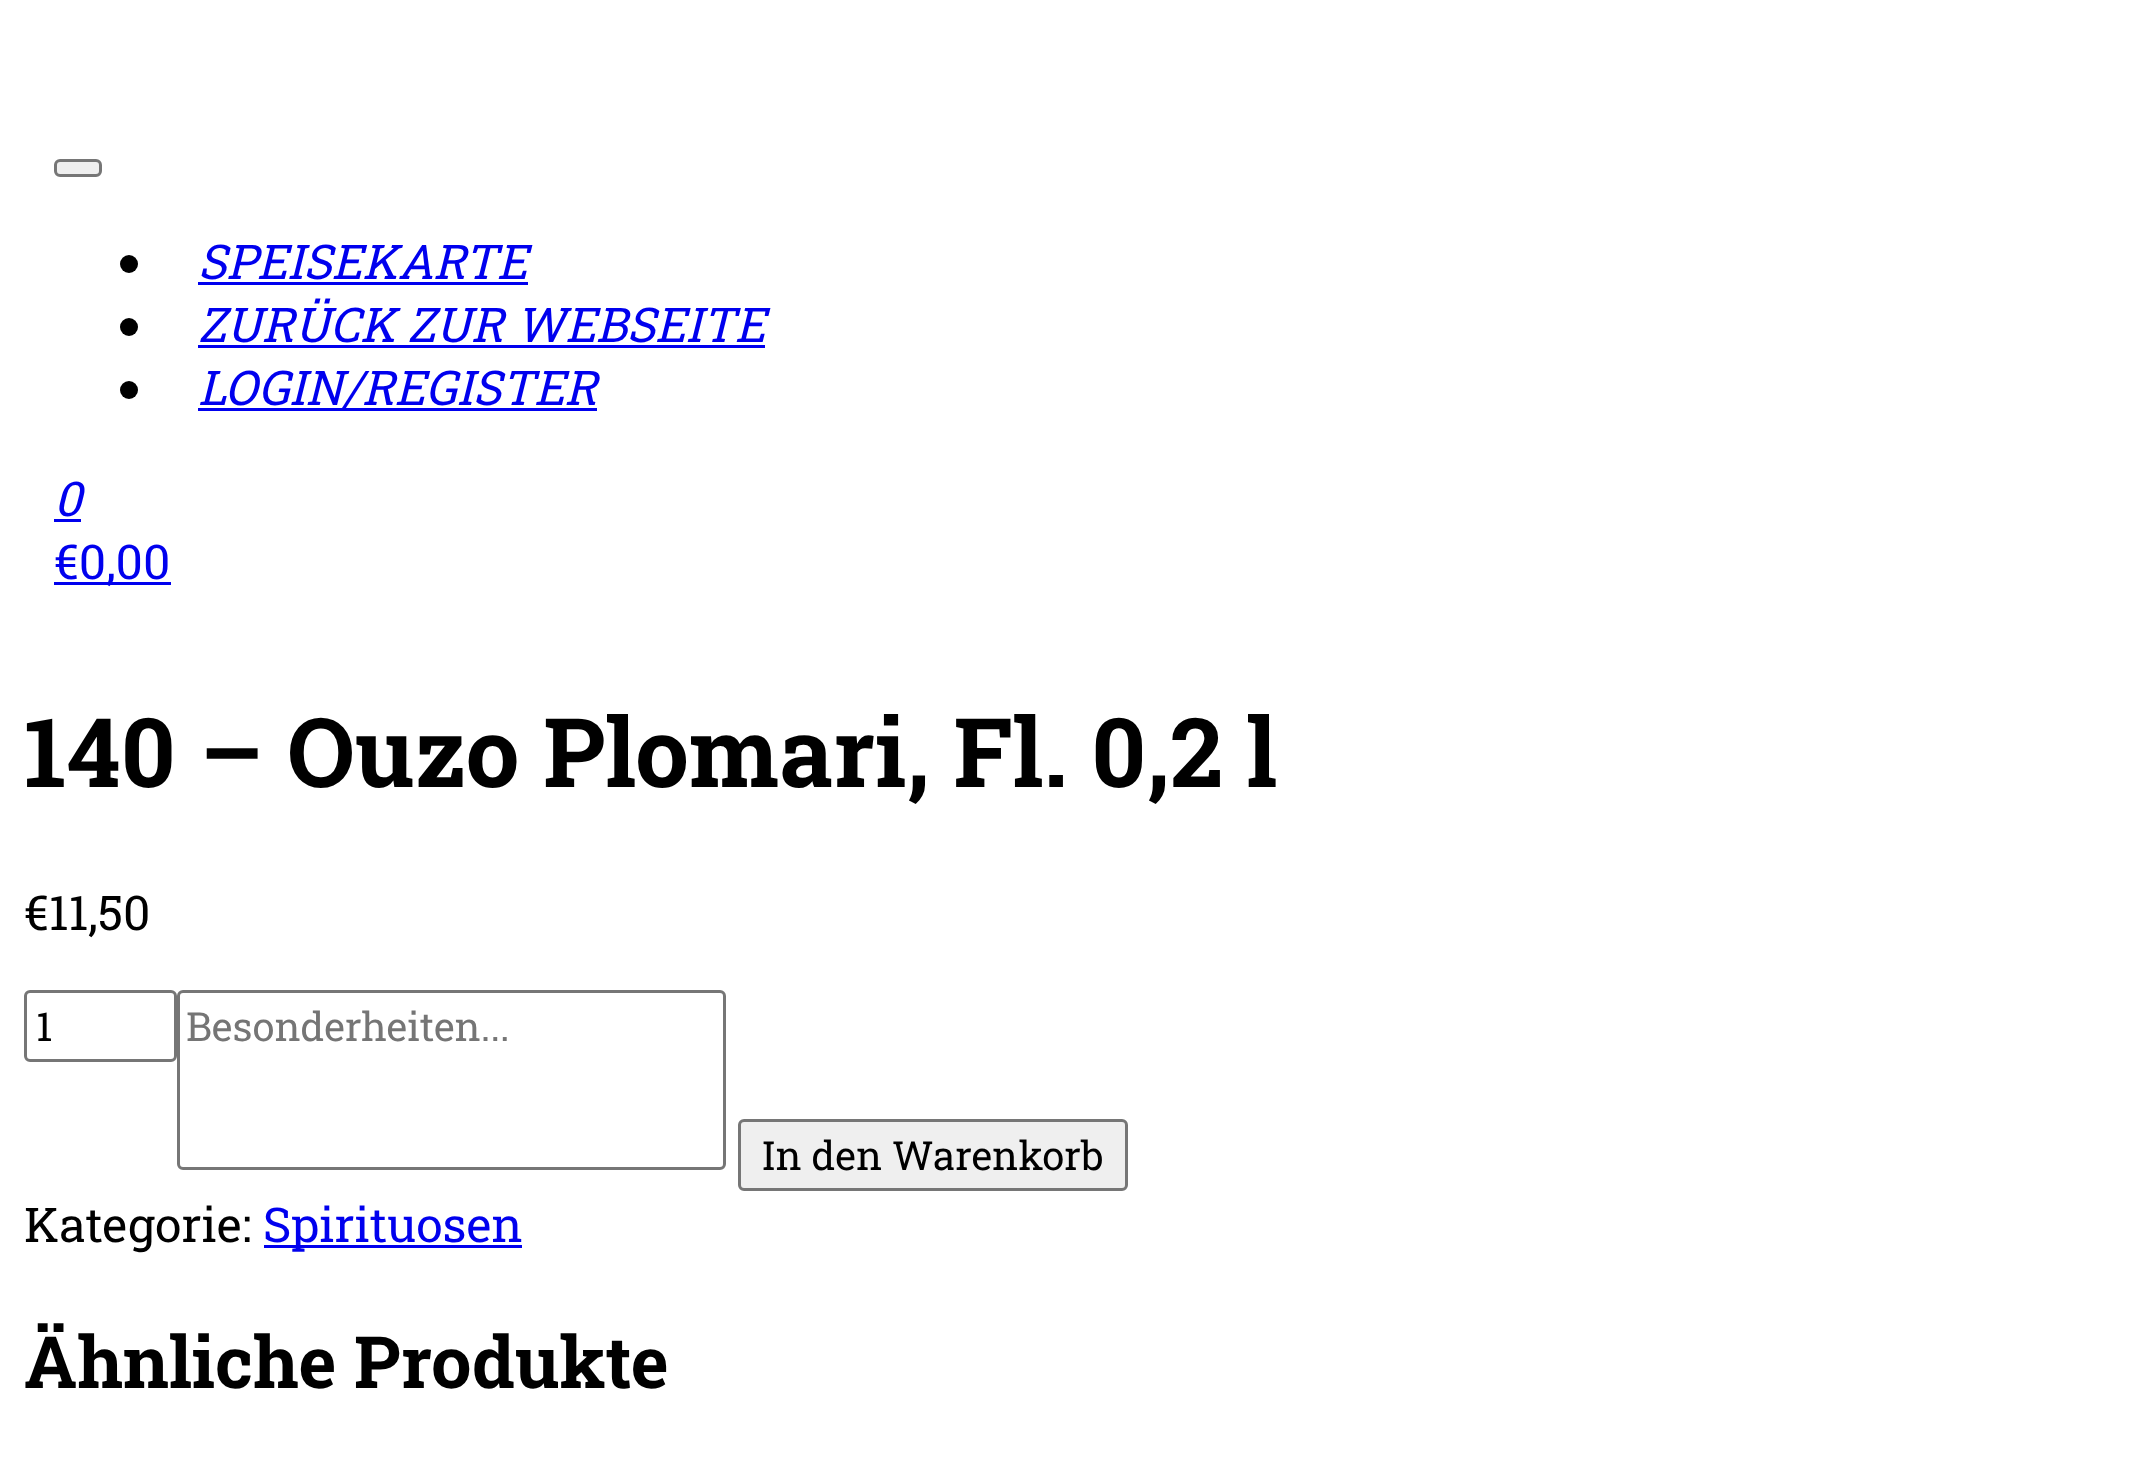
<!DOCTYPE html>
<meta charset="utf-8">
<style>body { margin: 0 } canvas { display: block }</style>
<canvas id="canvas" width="2152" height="1482"></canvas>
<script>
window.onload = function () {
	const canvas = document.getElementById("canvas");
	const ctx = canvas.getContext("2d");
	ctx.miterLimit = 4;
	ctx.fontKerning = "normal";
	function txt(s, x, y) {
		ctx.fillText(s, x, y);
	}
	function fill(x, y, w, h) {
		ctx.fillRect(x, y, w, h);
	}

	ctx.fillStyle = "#FFFFFF";
	fill(0, 0, 2152, 1482);
	ctx.fillStyle = "#EFEFEF";
	ctx.beginPath();
	ctx.roundRect(55.5, 160.5, 45, 15, 4.5);
	ctx.fill();
	ctx.strokeStyle = "#767676";
	ctx.lineWidth = 3;
	ctx.stroke();
	ctx.fillStyle = "#000000";
	ctx.beginPath();
	ctx.arc(129, 264, 9, 0, Math.PI * 2);
	ctx.fill();
	ctx.fillStyle = "#0000EE";
	fill(198, 282, 330, 3);
	ctx.fillStyle = "#000000";
	ctx.beginPath();
	ctx.arc(129, 327, 9, 0, Math.PI * 2);
	ctx.fill();
	ctx.fillStyle = "#0000EE";
	fill(198, 345, 567, 3);
	ctx.fillStyle = "#000000";
	ctx.beginPath();
	ctx.arc(129, 390, 9, 0, Math.PI * 2);
	ctx.fill();
	ctx.fillStyle = "#0000EE";
	fill(198, 408, 399, 3);
	fill(54, 519, 27, 3);
	fill(54, 582, 117, 3);
	ctx.beginPath();
	ctx.roundRect(25.5, 991.5, 150, 69, 4.5);
	ctx.stroke();
	ctx.beginPath();
	ctx.roundRect(178.5, 991.5, 546, 177, 4.5);
	ctx.stroke();
	ctx.fillStyle = "#EFEFEF";
	ctx.beginPath();
	ctx.roundRect(739.5, 1120.5, 387, 69, 4.5);
	ctx.fill();
	ctx.stroke();
	ctx.fillStyle = "#0000EE";
	fill(264, 1245, 258, 3);
	ctx.font = "italic 48px Roboto Slab";
	txt("SPEISEKARTE", 198, 279);
	txt("ZURÜCK ZUR WEBSEITE", 198, 342);
	txt("LOGIN/REGISTER", 198, 405);
	txt("0", 54, 516);
	ctx.font = "48px Roboto Slab";
	txt("€0,00", 54, 579);
	ctx.font = "bold 96px Roboto Slab";
	ctx.fillStyle = "#000000";
	txt("140 – Ouzo Plomari, Fl. 0,2 l", 24, 787);
	ctx.font = "48px Roboto Slab";
	txt("€11,50", 24, 930);
	ctx.font = "40px Roboto Slab";
	txt("1", 36, 1041);
	ctx.fillStyle = "#757575";
	txt("Besonderheiten...", 186, 1041);
	ctx.fillStyle = "#000000";
	txt("In den Warenkorb", 762, 1170);
	ctx.font = "48px Roboto Slab";
	txt("Kategorie:", 24, 1242);
	ctx.fillStyle = "#0000EE";
	txt("Spirituosen", 263, 1242);
	ctx.font = "bold 72px Roboto Slab";
	ctx.fillStyle = "#000000";
	txt("Ähnliche Produkte", 24, 1388);
};
</script>
